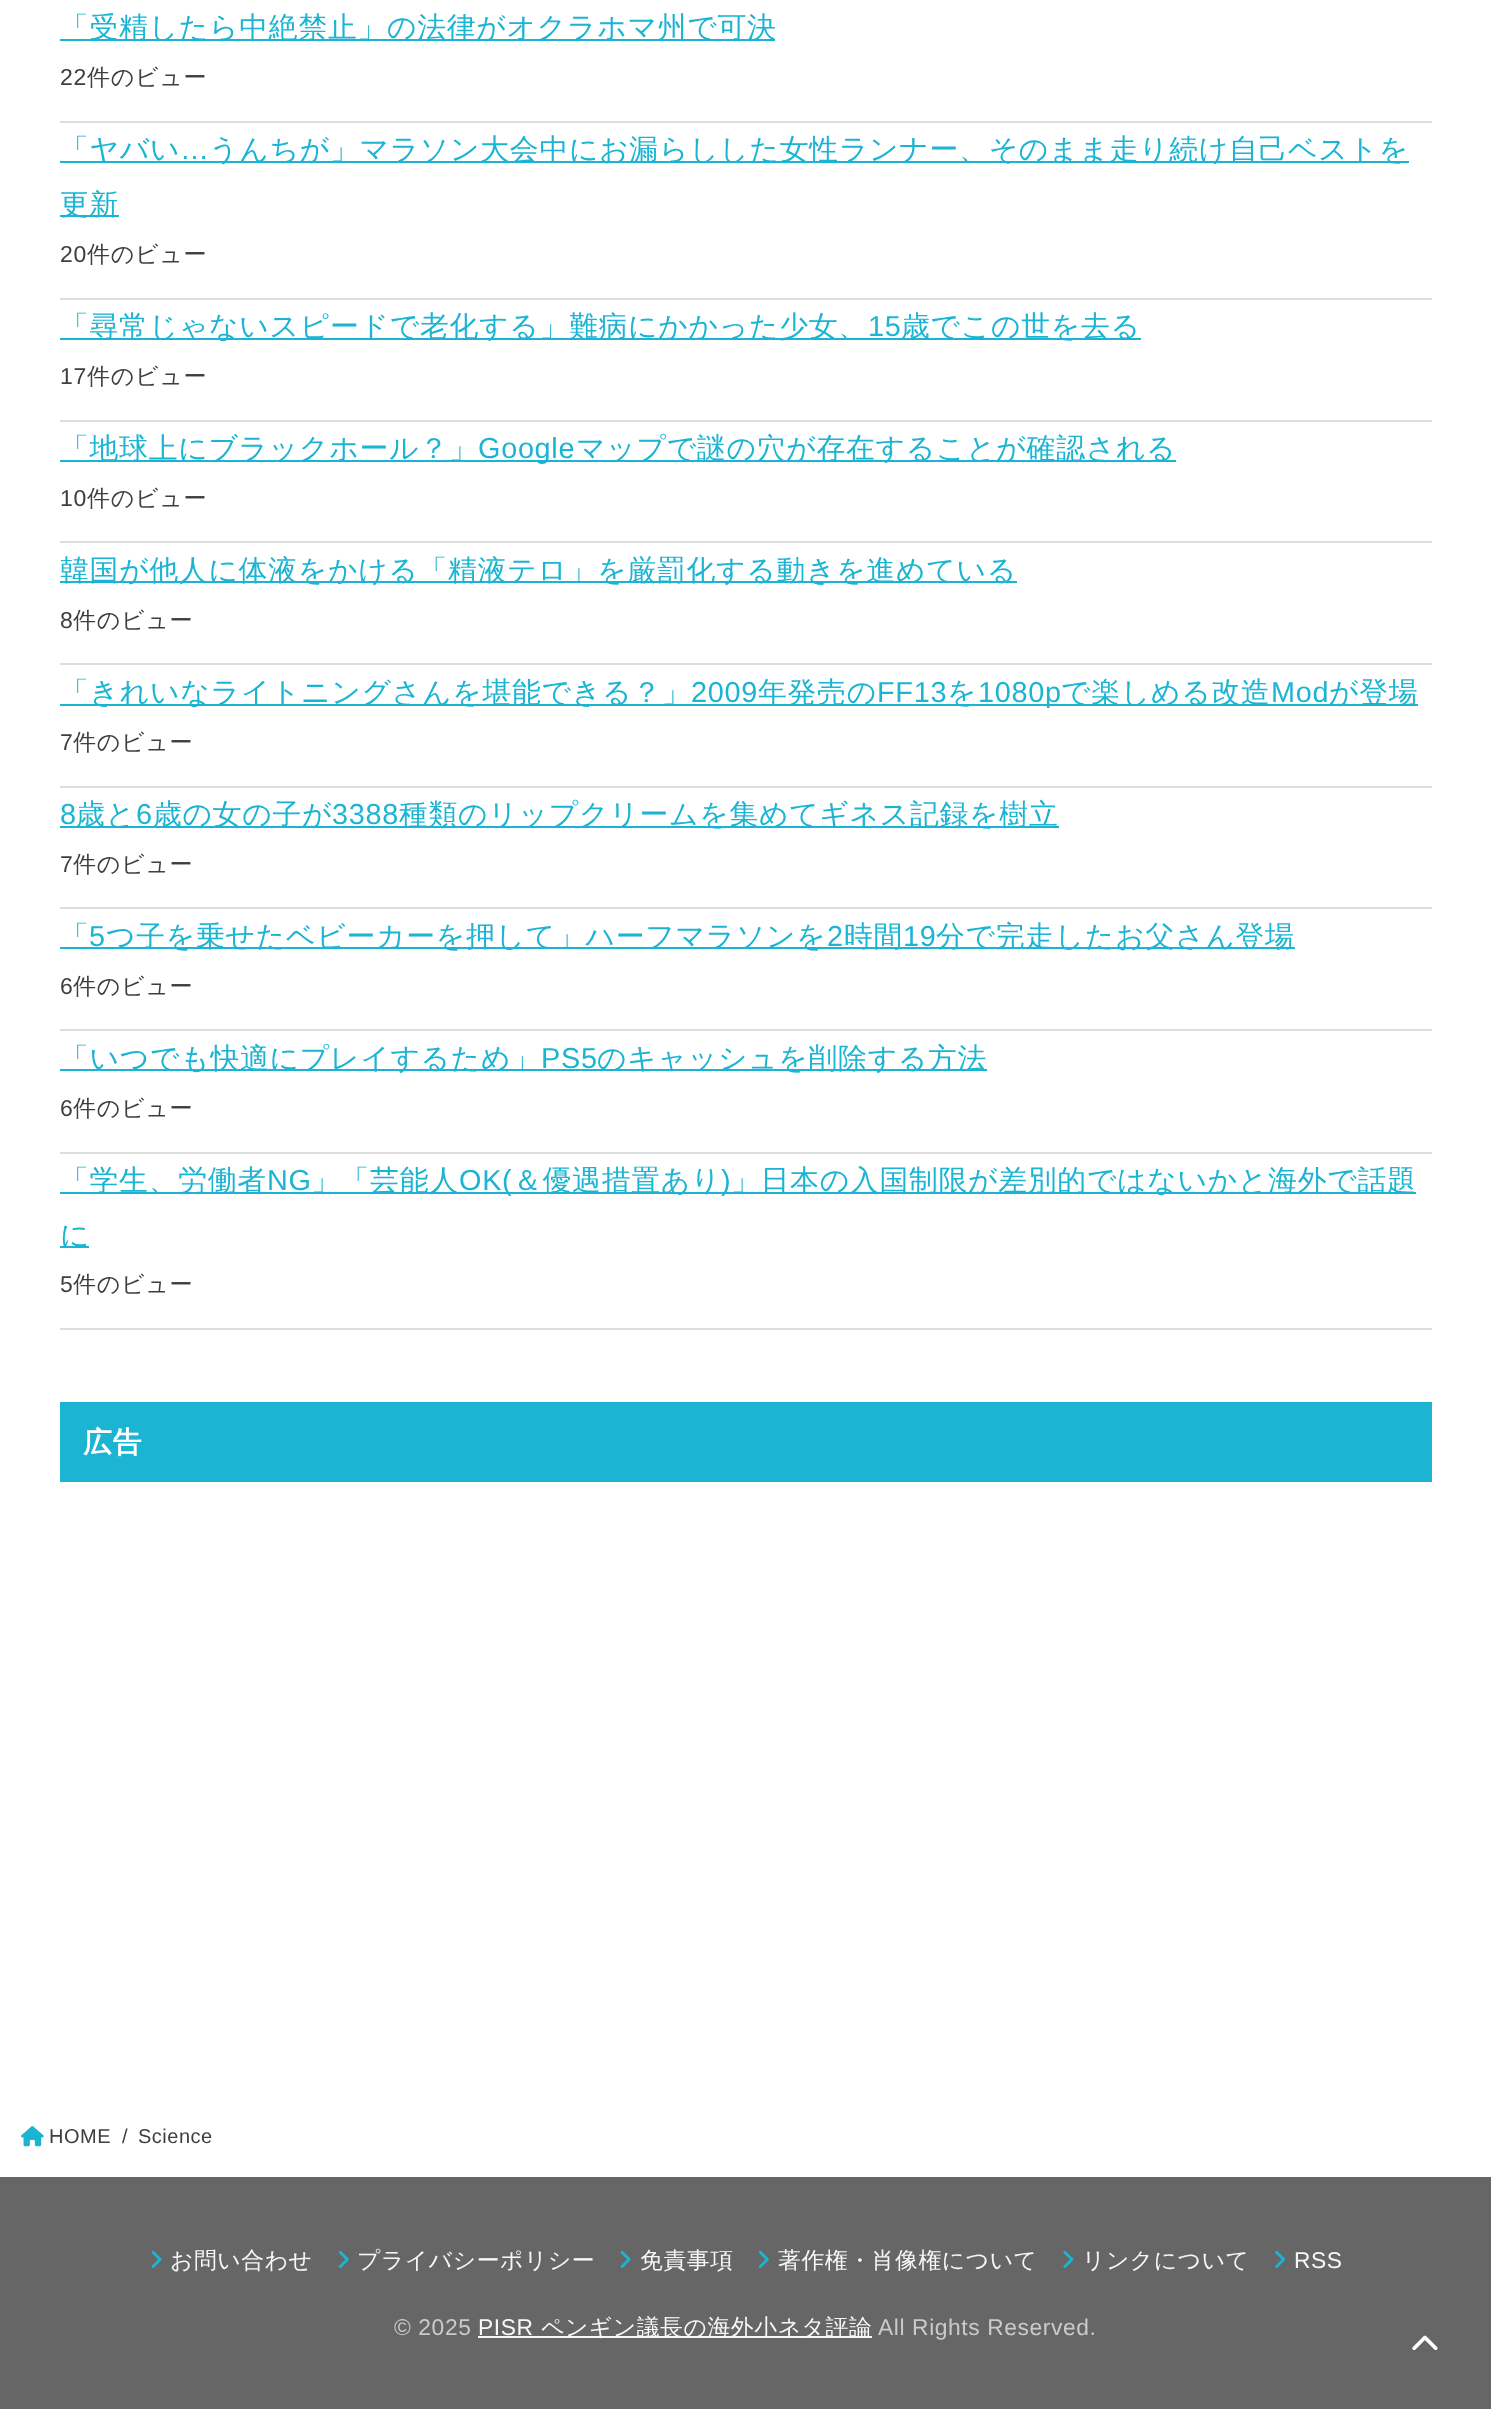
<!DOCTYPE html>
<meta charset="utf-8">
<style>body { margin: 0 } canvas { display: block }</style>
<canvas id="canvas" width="1491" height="2409"></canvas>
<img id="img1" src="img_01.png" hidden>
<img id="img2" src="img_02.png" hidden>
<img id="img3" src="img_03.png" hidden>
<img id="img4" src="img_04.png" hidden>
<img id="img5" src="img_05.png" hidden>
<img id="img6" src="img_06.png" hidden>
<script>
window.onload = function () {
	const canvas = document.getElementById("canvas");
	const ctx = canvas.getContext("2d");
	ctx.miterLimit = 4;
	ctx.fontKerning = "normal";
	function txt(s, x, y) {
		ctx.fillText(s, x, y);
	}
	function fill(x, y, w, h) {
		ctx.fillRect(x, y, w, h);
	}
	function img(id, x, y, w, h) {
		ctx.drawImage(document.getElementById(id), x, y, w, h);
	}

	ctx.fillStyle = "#666666";
	fill(0, 0, 1491, 2409);
	ctx.fillStyle = "#FFFFFF";
	fill(0, 0, 1491, 2177);
	ctx.fillStyle = "#DDDDDD";
	fill(60, 121, 1372, 2);
	ctx.fillStyle = "#1BB4D3";
	fill(60, 39, 715, 2);
	ctx.fillStyle = "#DDDDDD";
	fill(60, 298, 1372, 2);
	ctx.fillStyle = "#1BB4D3";
	fill(60, 161, 1349, 2);
	fill(60, 215, 59, 2);
	ctx.fillStyle = "#DDDDDD";
	fill(60, 420, 1372, 2);
	ctx.fillStyle = "#1BB4D3";
	fill(60, 338, 1081, 2);
	ctx.fillStyle = "#DDDDDD";
	fill(60, 541, 1372, 2);
	ctx.fillStyle = "#1BB4D3";
	fill(60, 460, 1116, 2);
	ctx.fillStyle = "#DDDDDD";
	fill(60, 663, 1372, 2);
	ctx.fillStyle = "#1BB4D3";
	fill(60, 581, 957, 2);
	ctx.fillStyle = "#DDDDDD";
	fill(60, 786, 1372, 2);
	ctx.fillStyle = "#1BB4D3";
	fill(60, 704, 1358, 2);
	ctx.fillStyle = "#DDDDDD";
	fill(60, 907, 1372, 2);
	ctx.fillStyle = "#1BB4D3";
	fill(60, 826, 999, 2);
	ctx.fillStyle = "#DDDDDD";
	fill(60, 1029, 1372, 2);
	ctx.fillStyle = "#1BB4D3";
	fill(60, 947, 1235, 2);
	ctx.fillStyle = "#DDDDDD";
	fill(60, 1152, 1372, 2);
	ctx.fillStyle = "#1BB4D3";
	fill(60, 1069, 927, 2);
	ctx.fillStyle = "#DDDDDD";
	fill(60, 1328, 1372, 2);
	ctx.fillStyle = "#1BB4D3";
	fill(60, 1192, 1356, 2);
	fill(60, 1246, 29, 2);
	fill(60, 1402, 1372, 80);
	img("img1", 21, 2126, 23, 21);
	img("img2", 151, 2250, 11, 18);
	img("img3", 338, 2250, 11, 18);
	img("img2", 620, 2250, 11, 18);
	img("img3", 758, 2250, 11, 18);
	img("img4", 1063, 2250, 11, 18);
	img("img5", 1275, 2250, 11, 18);
	ctx.fillStyle = "#F7F7F7";
	fill(478, 2336, 394, 2);
	img("img6", 1412, 2335, 26, 16);
	ctx.letterSpacing = "0.7px";
	ctx.font = "500 28.85px WenQuanYi Zen Hei";
	ctx.fillStyle = "#1BB4D3";
	txt("「受精したら中絶禁止」の法律がオクラホマ州で可決", 60, 37);
	ctx.font = "23px Liberation Sans";
	ctx.fillStyle = "#3E3E3E";
	txt("22", 60, 85);
	ctx.font = "500 23px WenQuanYi Zen Hei";
	txt("件のビュー", 87, 85);
	ctx.font = "500 28.85px WenQuanYi Zen Hei";
	ctx.fillStyle = "#1BB4D3";
	txt("「ヤバい", 60, 159);
	ctx.font = "28.85px Liberation Sans";
	txt("…", 180, 159);
	ctx.font = "500 28.85px WenQuanYi Zen Hei";
	txt("うんちが」マラソン大会中にお漏らしした女性ランナー、そのまま走り続け自己ベストを", 209, 159);
	txt("更新", 60, 214);
	ctx.font = "23px Liberation Sans";
	ctx.fillStyle = "#3E3E3E";
	txt("20", 60, 262);
	ctx.font = "500 23px WenQuanYi Zen Hei";
	txt("件のビュー", 87, 262);
	ctx.font = "500 28.85px WenQuanYi Zen Hei";
	ctx.fillStyle = "#1BB4D3";
	txt("「尋常じゃないスピードで老化する」難病にかかった少女、", 60, 336);
	ctx.font = "28.85px Liberation Sans";
	txt("15", 868, 336);
	ctx.font = "500 28.85px WenQuanYi Zen Hei";
	txt("歳でこの世を去る", 901, 336);
	ctx.font = "23px Liberation Sans";
	ctx.fillStyle = "#3E3E3E";
	txt("17", 60, 384);
	ctx.font = "500 23px WenQuanYi Zen Hei";
	txt("件のビュー", 87, 384);
	ctx.font = "500 28.85px WenQuanYi Zen Hei";
	ctx.fillStyle = "#1BB4D3";
	txt("「地球上にブラックホール？」", 60, 458);
	ctx.font = "28.85px Liberation Sans";
	txt("Google", 478, 458);
	ctx.font = "500 28.85px WenQuanYi Zen Hei";
	txt("マップで謎の穴が存在することが確認される", 576, 458);
	ctx.font = "23px Liberation Sans";
	ctx.fillStyle = "#3E3E3E";
	txt("10", 60, 506);
	ctx.font = "500 23px WenQuanYi Zen Hei";
	txt("件のビュー", 87, 506);
	ctx.font = "500 28.85px WenQuanYi Zen Hei";
	ctx.fillStyle = "#1BB4D3";
	txt("韓国が他人に体液をかける「精液テロ」を厳罰化する動きを進めている", 60, 580);
	ctx.font = "23px Liberation Sans";
	ctx.fillStyle = "#3E3E3E";
	txt("8", 60, 628);
	ctx.font = "500 23px WenQuanYi Zen Hei";
	txt("件のビュー", 73, 628);
	ctx.font = "500 28.85px WenQuanYi Zen Hei";
	ctx.fillStyle = "#1BB4D3";
	txt("「きれいなライトニングさんを堪能できる？」", 60, 702);
	ctx.font = "28.85px Liberation Sans";
	txt("2009", 691, 702);
	ctx.font = "500 28.85px WenQuanYi Zen Hei";
	txt("年発売の", 758, 702);
	ctx.font = "28.85px Liberation Sans";
	txt("FF13", 877, 702);
	ctx.font = "500 28.85px WenQuanYi Zen Hei";
	txt("を", 947, 702);
	ctx.font = "28.85px Liberation Sans";
	txt("1080p", 978, 702);
	ctx.font = "500 28.85px WenQuanYi Zen Hei";
	txt("で楽しめる改造", 1061, 702);
	ctx.font = "28.85px Liberation Sans";
	txt("Mod", 1271, 702);
	ctx.font = "500 28.85px WenQuanYi Zen Hei";
	txt("が登場", 1329, 702);
	ctx.font = "23px Liberation Sans";
	ctx.fillStyle = "#3E3E3E";
	txt("7", 60, 750);
	ctx.font = "500 23px WenQuanYi Zen Hei";
	txt("件のビュー", 73, 750);
	ctx.font = "28.85px Liberation Sans";
	ctx.fillStyle = "#1BB4D3";
	txt("8", 60, 824);
	ctx.font = "500 28.85px WenQuanYi Zen Hei";
	txt("歳と", 76, 824);
	ctx.font = "28.85px Liberation Sans";
	txt("6", 136, 824);
	ctx.font = "500 28.85px WenQuanYi Zen Hei";
	txt("歳の女の子が", 153, 824);
	ctx.font = "28.85px Liberation Sans";
	txt("3388", 332, 824);
	ctx.font = "500 28.85px WenQuanYi Zen Hei";
	txt("種類のリップクリームを集めてギネス記録を樹立", 399, 824);
	ctx.font = "23px Liberation Sans";
	ctx.fillStyle = "#3E3E3E";
	txt("7", 60, 872);
	ctx.font = "500 23px WenQuanYi Zen Hei";
	txt("件のビュー", 73, 872);
	ctx.font = "500 28.85px WenQuanYi Zen Hei";
	ctx.fillStyle = "#1BB4D3";
	txt("「", 60, 946);
	ctx.font = "28.85px Liberation Sans";
	txt("5", 89, 946);
	ctx.font = "500 28.85px WenQuanYi Zen Hei";
	txt("つ子を乗せたベビーカーを押して」ハーフマラソンを", 106, 946);
	ctx.font = "28.85px Liberation Sans";
	txt("2", 827, 946);
	ctx.font = "500 28.85px WenQuanYi Zen Hei";
	txt("時間", 844, 946);
	ctx.font = "28.85px Liberation Sans";
	txt("19", 903, 946);
	ctx.font = "500 28.85px WenQuanYi Zen Hei";
	txt("分で完走したお父さん登場", 936, 946);
	ctx.font = "23px Liberation Sans";
	ctx.fillStyle = "#3E3E3E";
	txt("6", 60, 994);
	ctx.font = "500 23px WenQuanYi Zen Hei";
	txt("件のビュー", 73, 994);
	ctx.font = "500 28.85px WenQuanYi Zen Hei";
	ctx.fillStyle = "#1BB4D3";
	txt("「いつでも快適にプレイするため」", 60, 1068);
	ctx.font = "28.85px Liberation Sans";
	txt("PS5", 541, 1068);
	ctx.font = "500 28.85px WenQuanYi Zen Hei";
	txt("のキャッシュを削除する方法", 597, 1068);
	ctx.font = "23px Liberation Sans";
	ctx.fillStyle = "#3E3E3E";
	txt("6", 60, 1116);
	ctx.font = "500 23px WenQuanYi Zen Hei";
	txt("件のビュー", 73, 1116);
	ctx.font = "500 28.85px WenQuanYi Zen Hei";
	ctx.fillStyle = "#1BB4D3";
	txt("「学生、労働者", 60, 1190);
	ctx.font = "28.85px Liberation Sans";
	txt("NG", 267, 1190);
	ctx.font = "500 28.85px WenQuanYi Zen Hei";
	txt("」「芸能人", 311, 1190);
	ctx.font = "28.85px Liberation Sans";
	txt("OK(", 459, 1190);
	ctx.font = "500 28.85px WenQuanYi Zen Hei";
	txt("＆優遇措置あり", 513, 1190);
	ctx.font = "28.85px Liberation Sans";
	txt(")", 721, 1190);
	ctx.font = "500 28.85px WenQuanYi Zen Hei";
	txt("」日本の入国制限が差別的ではないかと海外で話題", 731, 1190);
	txt("に", 60, 1245);
	ctx.font = "23px Liberation Sans";
	ctx.fillStyle = "#3E3E3E";
	txt("5", 60, 1292);
	ctx.font = "500 23px WenQuanYi Zen Hei";
	txt("件のビュー", 73, 1292);
	ctx.letterSpacing = "1px";
	ctx.font = "bold 28.85px WenQuanYi Zen Hei";
	ctx.fillStyle = "#FFFFFF";
	txt("広告", 83, 1452);
	ctx.letterSpacing = "0.5px";
	ctx.font = "20px Liberation Sans";
	ctx.fillStyle = "#3E3E3E";
	txt("HOME", 49, 2143);
	txt("/", 122, 2143);
	txt("Science", 138, 2143);
	ctx.letterSpacing = "0.6px";
	ctx.font = "500 22.8px WenQuanYi Zen Hei";
	ctx.fillStyle = "#F7F7F7";
	txt("お問い合わせ", 170, 2268);
	txt("プライバシーポリシー", 357, 2268);
	txt("免責事項", 640, 2268);
	txt("著作権・肖像権について", 778, 2268);
	txt("リンクについて", 1082, 2268);
	ctx.font = "22.8px Liberation Sans";
	txt("RSS", 1294, 2268);
	ctx.fillStyle = "#CACACA";
	txt("© 2025", 394, 2335);
	ctx.fillStyle = "#F7F7F7";
	txt("PISR", 478, 2335);
	ctx.font = "500 22.8px WenQuanYi Zen Hei";
	txt("ペンギン議長の海外小ネタ評論", 541, 2335);
	ctx.font = "22.8px Liberation Sans";
	ctx.fillStyle = "#CACACA";
	txt("All Rights Reserved.", 878, 2335);
};
</script>
